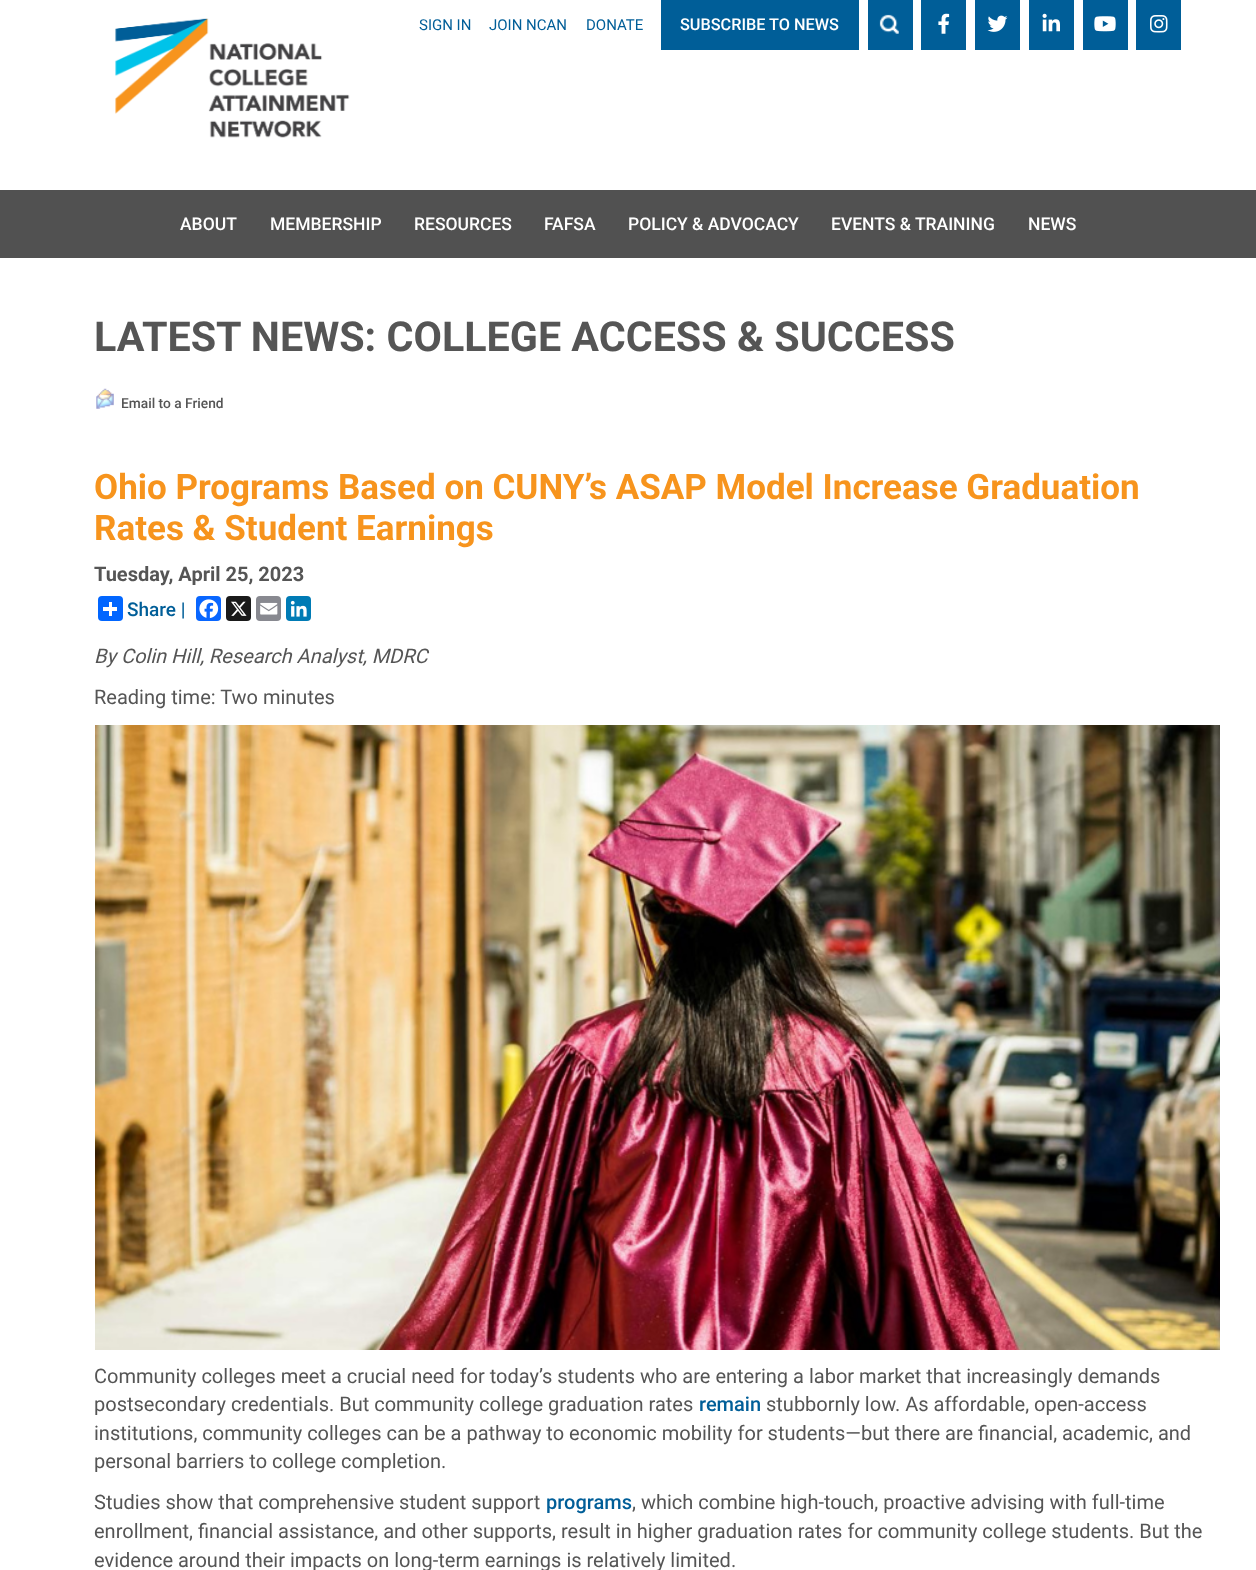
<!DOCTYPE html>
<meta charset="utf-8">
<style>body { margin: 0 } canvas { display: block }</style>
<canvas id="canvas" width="1256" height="1570"></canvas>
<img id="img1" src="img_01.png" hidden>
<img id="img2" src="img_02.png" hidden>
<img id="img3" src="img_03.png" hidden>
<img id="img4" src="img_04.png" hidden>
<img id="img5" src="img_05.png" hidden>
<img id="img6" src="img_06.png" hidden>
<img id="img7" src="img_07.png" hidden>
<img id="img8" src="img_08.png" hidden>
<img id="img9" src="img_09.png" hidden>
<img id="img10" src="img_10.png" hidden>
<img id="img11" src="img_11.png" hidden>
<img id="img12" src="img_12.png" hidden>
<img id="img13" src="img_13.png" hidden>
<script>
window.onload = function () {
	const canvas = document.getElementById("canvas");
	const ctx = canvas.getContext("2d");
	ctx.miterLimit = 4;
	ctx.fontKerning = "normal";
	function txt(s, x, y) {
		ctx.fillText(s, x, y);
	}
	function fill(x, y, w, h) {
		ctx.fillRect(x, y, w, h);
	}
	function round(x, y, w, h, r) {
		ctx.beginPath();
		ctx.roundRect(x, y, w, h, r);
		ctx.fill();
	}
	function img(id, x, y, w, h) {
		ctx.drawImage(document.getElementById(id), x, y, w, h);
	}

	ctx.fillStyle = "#FFFFFF";
	fill(0, 0, 1256, 1570);
	img("img1", 115, 18, 235, 120);
	ctx.fillStyle = "#005E98";
	fill(661, 0, 198, 50);
	fill(868, 0, 45, 50);
	img("img2", 879, 14, 20, 20);
	fill(921, 0, 45, 50);
	img("img3", 938, 13, 12, 21);
	fill(975, 0, 45, 50);
	img("img4", 987, 15, 21, 17);
	fill(1029, 0, 45, 50);
	img("img5", 1042, 13, 18, 19);
	fill(1083, 0, 45, 50);
	img("img6", 1094, 16, 22, 16);
	fill(1136, 0, 45, 50);
	img("img7", 1150, 15, 18, 18);
	ctx.fillStyle = "#515151";
	fill(0, 190, 1256, 68);
	img("img8", 96, 388, 18, 21);
	ctx.fillStyle = "#0166FF";
	round(98, 596, 25, 25, 4);
	ctx.fillStyle = "#FFFFFF";
	fill(109, 602, 3, 14);
	fill(103, 607, 14, 4);
	ctx.fillStyle = "#0866FF";
	round(196, 596, 25, 25, 4);
	img("img9", 199, 599, 20, 19);
	ctx.fillStyle = "#1A1A1A";
	round(226, 596, 25, 25, 4);
	img("img10", 231, 601, 16, 15);
	ctx.fillStyle = "#888990";
	round(256, 596, 25, 25, 4);
	img("img11", 260, 602, 18, 13);
	ctx.fillStyle = "#007BB5";
	round(286, 596, 25, 25, 4);
	img("img12", 290, 600, 17, 17);
	img("img13", 95, 725, 1125, 625);
	ctx.font = "15px Roboto";
	ctx.fillStyle = "#005E98";
	txt("SIGN IN", 419, 30);
	txt("JOIN NCAN", 489, 30);
	txt("DONATE", 586, 30);
	ctx.font = "500 16.25px Roboto";
	ctx.fillStyle = "#FFFFFF";
	txt("SUBSCRIBE TO NEWS", 680, 30);
	ctx.font = "500 17.5px Roboto";
	txt("ABOUT", 180, 230);
	txt("MEMBERSHIP", 270, 230);
	txt("RESOURCES", 414, 230);
	txt("FAFSA", 544, 230);
	txt("POLICY & ADVOCACY", 628, 230);
	txt("EVENTS & TRAINING", 831, 230);
	txt("NEWS", 1028, 230);
	ctx.font = "bold 41.25px Roboto";
	ctx.fillStyle = "#555555";
	txt("LATEST NEWS: COLLEGE ACCESS & SUCCESS", 94, 351);
	ctx.font = "500 13.75px Roboto";
	txt("Email to a Friend", 121, 408);
	ctx.font = "bold 35px Roboto";
	ctx.fillStyle = "#F7941D";
	txt("Ohio Programs Based on CUNY’s ASAP Model Increase Graduation", 94, 499);
	txt("Rates & Student Earnings", 94, 540);
	ctx.font = "bold 20px Roboto";
	ctx.fillStyle = "#555555";
	txt("Tuesday, April 25, 2023", 94, 581);
	ctx.font = "500 19px Roboto";
	ctx.fillStyle = "#005E98";
	txt("Share |", 127, 616);
	ctx.font = "italic 20px Roboto";
	ctx.fillStyle = "#555555";
	txt("By Colin Hill, Research Analyst, MDRC", 94, 663);
	ctx.font = "20px Roboto";
	txt("Reading time: Two minutes", 94, 704);
	txt("Community colleges meet a crucial need for today’s students who are entering a labor market that increasingly demands", 94, 1383);
	txt("postsecondary credentials. But community college graduation rates", 94, 1411);
	ctx.font = "500 20px Roboto";
	ctx.fillStyle = "#005E98";
	txt("remain", 699, 1411);
	ctx.font = "20px Roboto";
	ctx.fillStyle = "#555555";
	txt("stubbornly low. As affordable, open-access", 766, 1411);
	txt("institutions, community colleges can be a pathway to economic mobility for students—but there are financial, academic, and", 94, 1440);
	txt("personal barriers to college completion.", 94, 1468);
	txt("Studies show that comprehensive student support", 94, 1509);
	ctx.font = "500 20px Roboto";
	ctx.fillStyle = "#005E98";
	txt("programs", 546, 1509);
	ctx.font = "20px Roboto";
	ctx.fillStyle = "#555555";
	txt(", which combine high-touch, proactive advising with full-time", 632, 1509);
	txt("enrollment, financial assistance, and other supports, result in higher graduation rates for community college students. But the", 94, 1538);
	txt("evidence around their impacts on long-term earnings is relatively limited.", 94, 1567);
};
</script>
